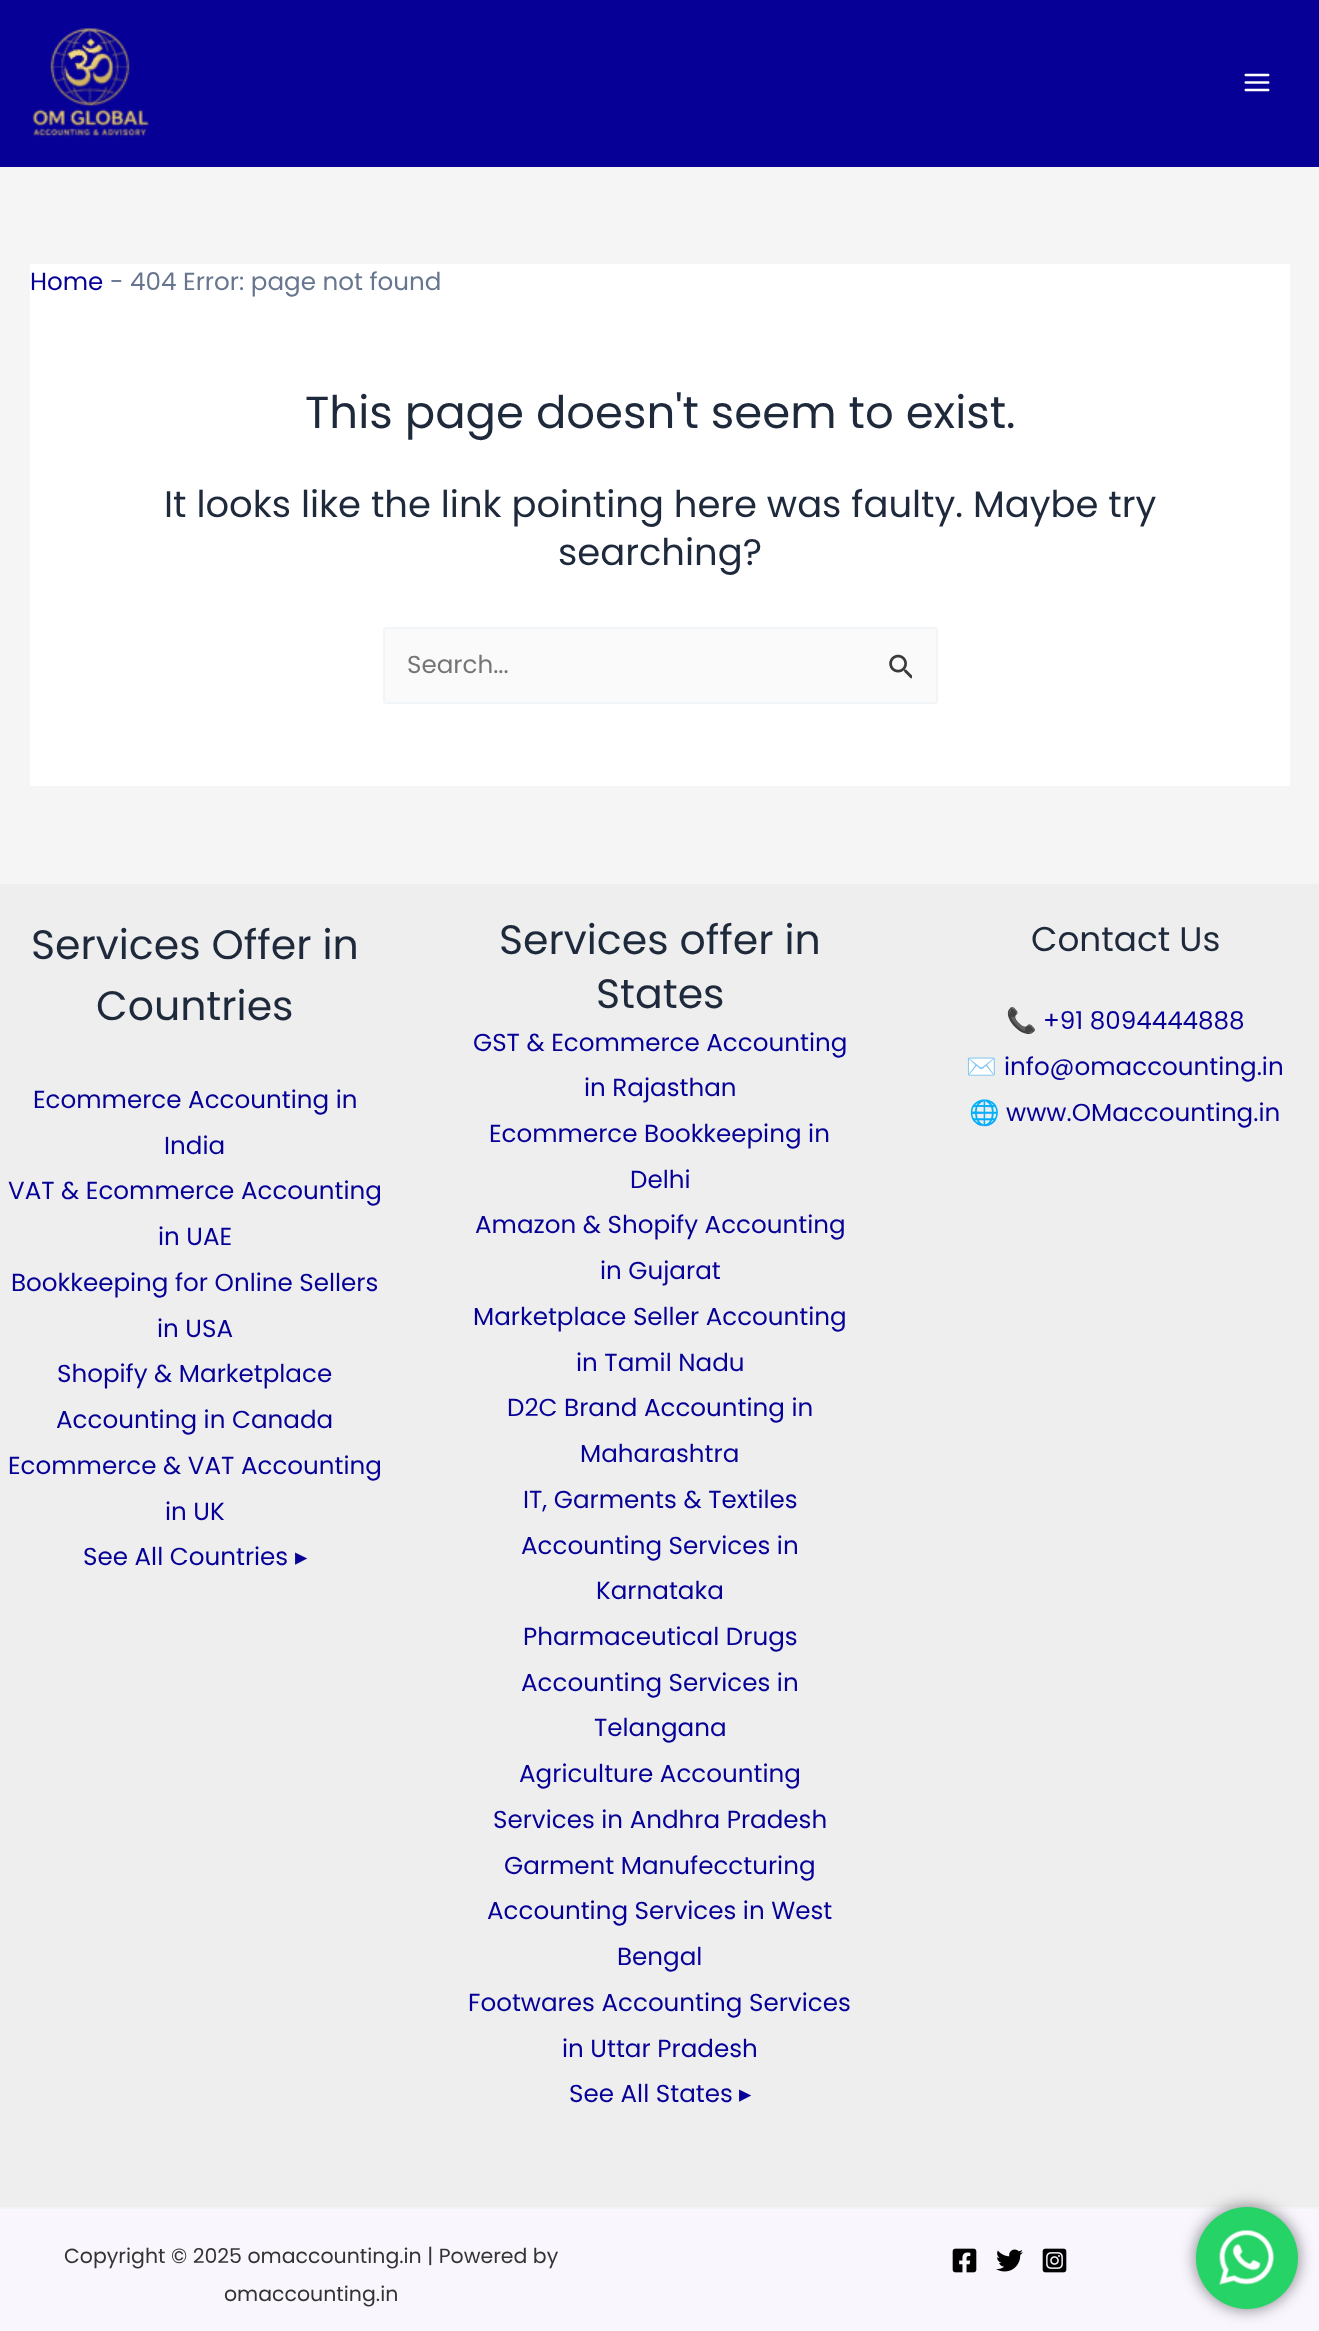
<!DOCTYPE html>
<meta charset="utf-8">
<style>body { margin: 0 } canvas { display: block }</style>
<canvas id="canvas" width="1319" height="2331"></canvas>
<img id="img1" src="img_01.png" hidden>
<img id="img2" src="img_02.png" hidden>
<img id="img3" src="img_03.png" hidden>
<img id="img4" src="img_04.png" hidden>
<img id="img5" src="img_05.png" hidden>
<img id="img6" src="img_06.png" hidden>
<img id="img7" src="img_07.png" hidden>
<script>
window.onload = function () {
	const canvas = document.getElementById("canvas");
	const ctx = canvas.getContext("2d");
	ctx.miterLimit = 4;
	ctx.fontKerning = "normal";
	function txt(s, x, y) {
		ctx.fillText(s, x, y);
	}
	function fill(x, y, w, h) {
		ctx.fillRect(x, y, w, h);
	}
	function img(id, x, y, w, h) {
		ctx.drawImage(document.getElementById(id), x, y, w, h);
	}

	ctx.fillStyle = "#F5F5F5";
	fill(0, 0, 1319, 2331);
	ctx.fillStyle = "#060097";
	fill(0, 0, 1319, 167);
	img("img1", 32, 28, 117, 110);
	img("img2", 1244, 73, 26, 19);
	ctx.fillStyle = "#FFFFFF";
	fill(30, 264, 1260, 522);
	ctx.fillStyle = "#FAFAFA";
	ctx.beginPath();
	ctx.roundRect(384, 628, 553, 75, 2);
	ctx.fill();
	ctx.strokeStyle = "#F2F5F7";
	ctx.lineWidth = 2;
	ctx.stroke();
	img("img3", 889, 654, 23, 25);
	ctx.fillStyle = "#EEEEEE";
	fill(0, 884, 1319, 1323);
	ctx.fillStyle = "#F9F6FE";
	fill(0, 2209, 1319, 122);
	ctx.fillStyle = "#F2F5F7";
	fill(0, 2207, 1319, 2);
	img("img4", 952, 2248, 25, 25);
	img("img5", 996, 2249, 27, 23);
	img("img6", 1042, 2248, 25, 25);
	ctx.fillStyle = "rgba(0, 0, 0, 0.5)";
	ctx.filter = "blur(8px)";
	ctx.beginPath();
	ctx.roundRect(1196, 2207, 102, 102, 51);
	ctx.fill();
	ctx.filter = "none";
	ctx.fillStyle = "#25D366";
	ctx.beginPath();
	ctx.arc(1247, 2258, 51, 0, Math.PI * 2);
	ctx.fill();
	img("img7", 1219, 2230, 55, 55);
	ctx.font = "24.6px Poppins";
	ctx.fillStyle = "#060097";
	txt("Home", 30, 290);
	ctx.fillStyle = "#67768E";
	txt("- 404 Error: page not found", 110, 290);
	ctx.font = "45px Poppins";
	ctx.fillStyle = "#1E293B";
	txt("This page doesn't seem to exist.", 305, 428);
	ctx.font = "36.95px Poppins";
	txt("It looks like the link pointing here was faulty. Maybe try", 164, 517);
	txt("searching?", 558, 565);
	ctx.font = "24.6px Poppins";
	ctx.fillStyle = "#757575";
	txt("Search...", 407, 673);
	ctx.font = "41px Poppins";
	ctx.fillStyle = "#1E293B";
	txt("Services Offer in", 31, 959);
	txt("Countries", 96, 1020);
	ctx.font = "24.6px Poppins";
	ctx.fillStyle = "#060097";
	txt("Ecommerce Accounting in", 33, 1108);
	txt("India", 164, 1154);
	txt("VAT & Ecommerce Accounting", 8, 1199);
	txt("in UAE", 158, 1245);
	txt("Bookkeeping for Online Sellers", 11, 1291);
	txt("in USA", 157, 1337);
	txt("Shopify & Marketplace", 57, 1382);
	txt("Accounting in Canada", 56, 1428);
	txt("Ecommerce & VAT Accounting", 8, 1474);
	txt("in UK", 165, 1520);
	txt("See All Countries", 83, 1565);
	ctx.font = "24.6px DejaVu Sans";
	txt("▸", 295, 1565);
	ctx.font = "41px Poppins";
	ctx.fillStyle = "#1E293B";
	txt("Services offer in", 499, 954);
	txt("States", 596, 1008);
	ctx.font = "24.6px Poppins";
	ctx.fillStyle = "#060097";
	txt("GST & Ecommerce Accounting", 473, 1051);
	txt("in Rajasthan", 584, 1096);
	txt("Ecommerce Bookkeeping in", 489, 1142);
	txt("Delhi", 630, 1188);
	txt("Amazon & Shopify Accounting", 475, 1233);
	txt("in Gujarat", 600, 1279);
	txt("Marketplace Seller Accounting", 473, 1325);
	txt("in Tamil Nadu", 576, 1371);
	txt("D2C Brand Accounting in", 507, 1416);
	txt("Maharashtra", 580, 1462);
	txt("IT, Garments & Textiles", 523, 1508);
	txt("Accounting Services in", 521, 1554);
	txt("Karnataka", 596, 1599);
	txt("Pharmaceutical Drugs", 523, 1645);
	txt("Accounting Services in", 521, 1691);
	txt("Telangana", 594, 1736);
	txt("Agriculture Accounting", 519, 1782);
	txt("Services in Andhra Pradesh", 493, 1828);
	txt("Garment Manufeccturing", 504, 1874);
	txt("Accounting Services in West", 487, 1919);
	txt("Bengal", 617, 1965);
	txt("Footwares Accounting Services", 468, 2011);
	txt("in Uttar Pradesh", 562, 2057);
	txt("See All States", 569, 2102);
	ctx.font = "24.6px DejaVu Sans";
	txt("▸", 739, 2102);
	ctx.font = "34.25px Poppins";
	ctx.fillStyle = "#1E293B";
	txt("Contact Us", 1031, 951);
	ctx.font = "24.6px Noto Color Emoji";
	ctx.fillStyle = "#060097";
	txt("📞", 1006, 1029);
	ctx.font = "24.6px Poppins";
	txt("+91 8094444888", 1043, 1029);
	ctx.font = "24.6px Noto Color Emoji";
	txt("✉️", 966, 1075);
	ctx.font = "24.6px Poppins";
	txt("info@omaccounting.in", 1004, 1075);
	ctx.font = "24.6px Noto Color Emoji";
	txt("🌐", 969, 1121);
	ctx.font = "24.6px Poppins";
	txt("www.OMaccounting.in", 1006, 1121);
	ctx.font = "20.5px Poppins";
	ctx.fillStyle = "#333333";
	txt("Copyright © 2025 omaccounting.in | Powered by", 64, 2263);
	txt("omaccounting.in", 224, 2301);
};
</script>
